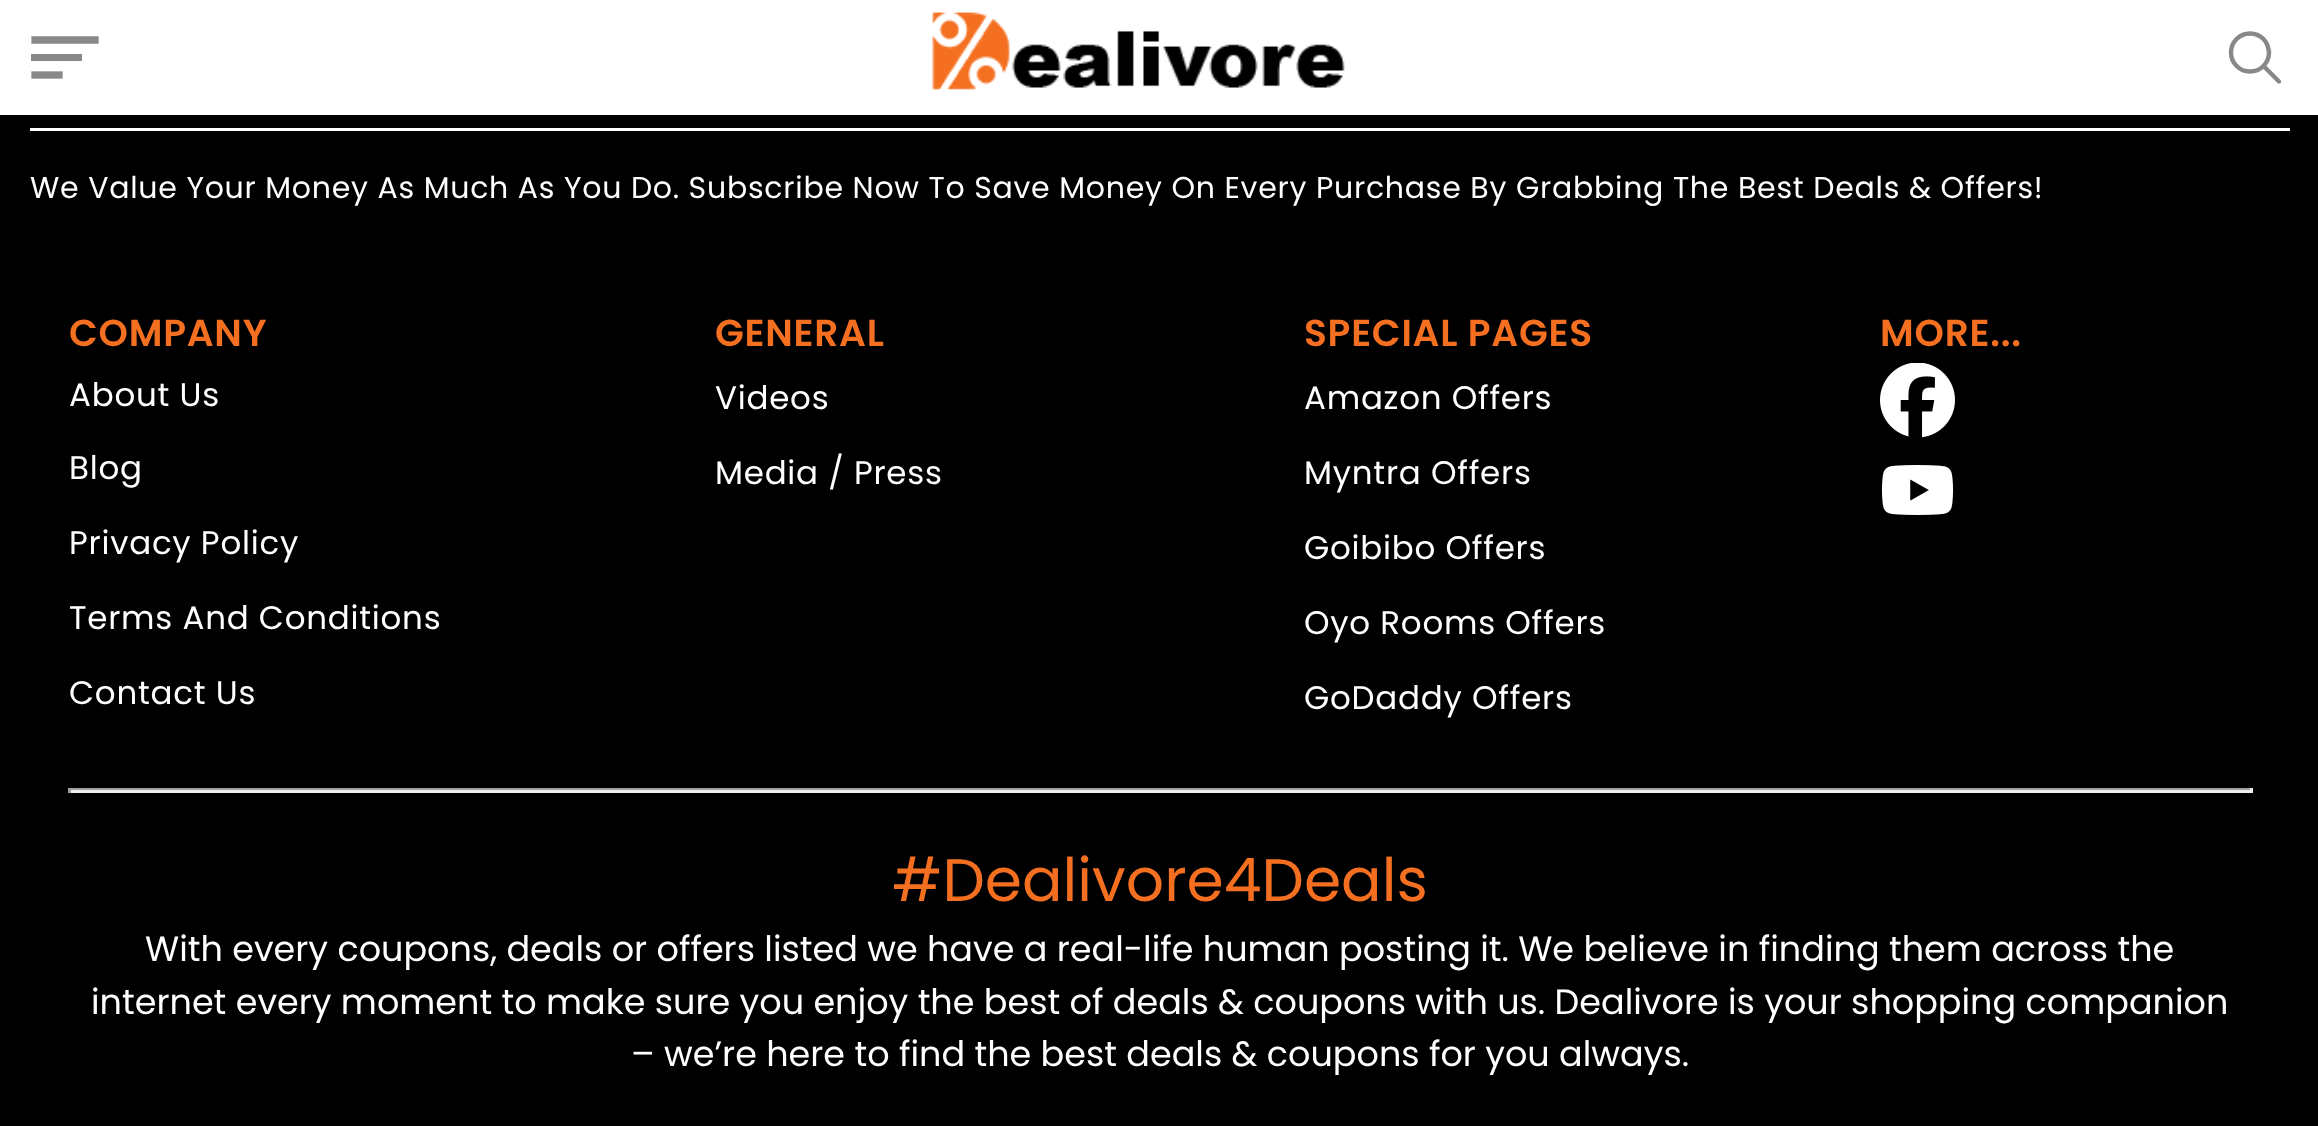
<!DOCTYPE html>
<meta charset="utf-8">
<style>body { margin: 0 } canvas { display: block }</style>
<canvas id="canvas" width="2318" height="1126"></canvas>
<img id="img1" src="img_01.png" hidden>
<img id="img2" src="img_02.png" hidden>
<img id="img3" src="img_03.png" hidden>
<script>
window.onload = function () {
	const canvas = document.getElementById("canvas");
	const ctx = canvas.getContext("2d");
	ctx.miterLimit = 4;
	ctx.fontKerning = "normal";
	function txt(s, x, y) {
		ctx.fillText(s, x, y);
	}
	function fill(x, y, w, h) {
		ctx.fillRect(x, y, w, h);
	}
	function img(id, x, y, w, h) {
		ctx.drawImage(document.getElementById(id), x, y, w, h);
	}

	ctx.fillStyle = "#000000";
	fill(0, 0, 2318, 1126);
	ctx.fillStyle = "#FFFFFF";
	fill(0, 0, 2318, 115);
	ctx.beginPath();
	ctx.moveTo(35, 40);
	ctx.lineTo(95, 40);
	ctx.strokeStyle = "#888888";
	ctx.lineWidth = 7.3;
	ctx.lineCap = "square";
	ctx.stroke();
	ctx.fillStyle = "#888888";
	fill(31, 54, 51, 7);
	ctx.beginPath();
	ctx.moveTo(35, 75);
	ctx.lineTo(59, 75);
	ctx.stroke();
	img("img1", 932, 12, 413, 78);
	ctx.beginPath();
	ctx.arc(2250, 52.5, 19, 0, Math.PI * 2);
	ctx.lineWidth = 4.4;
	ctx.stroke();
	ctx.beginPath();
	ctx.moveTo(2263.5, 66);
	ctx.lineTo(2279, 81.5);
	ctx.lineCap = "round";
	ctx.stroke();
	ctx.fillStyle = "#FFFFFF";
	fill(30, 128, 2260, 3);
	img("img2", 1880, 363, 75, 75);
	img("img3", 1881, 465, 73, 50);
	ctx.fillStyle = "#9F9F9F";
	fill(68, 788, 2185, 2);
	ctx.fillStyle = "#EEEEEE";
	fill(2250, 788, 3, 5);
	fill(68, 790, 2185, 3);
	ctx.fillStyle = "#9F9F9F";
	fill(68, 788, 3, 5);
	ctx.letterSpacing = "0.75px";
	ctx.font = "30px Poppins";
	ctx.fillStyle = "#FFFFFF";
	txt("We Value Your Money As Much As You Do. Subscribe Now To Save Money On Every Purchase By Grabbing The Best Deals & Offers!", 30, 198);
	ctx.font = "600 37.5px Poppins";
	ctx.fillStyle = "#F56F21";
	txt("COMPANY", 69, 346);
	ctx.font = "32.5px Poppins";
	ctx.fillStyle = "#FFFFFF";
	txt("About Us", 69, 406);
	txt("Blog", 69, 479);
	txt("Privacy Policy", 69, 554);
	txt("Terms And Conditions", 69, 629);
	txt("Contact Us", 69, 704);
	ctx.font = "600 37.5px Poppins";
	ctx.fillStyle = "#F56F21";
	txt("GENERAL", 715, 346);
	ctx.font = "32.5px Poppins";
	ctx.fillStyle = "#FFFFFF";
	txt("Videos", 715, 409);
	txt("Media / Press", 715, 484);
	ctx.font = "600 37.5px Poppins";
	ctx.fillStyle = "#F56F21";
	txt("SPECIAL PAGES", 1304, 346);
	ctx.font = "32.5px Poppins";
	ctx.fillStyle = "#FFFFFF";
	txt("Amazon Offers", 1304, 409);
	txt("Myntra Offers", 1304, 484);
	txt("Goibibo Offers", 1304, 559);
	txt("Oyo Rooms Offers", 1304, 634);
	txt("GoDaddy Offers", 1304, 709);
	ctx.font = "600 37.5px Poppins";
	ctx.fillStyle = "#F56F21";
	txt("MORE...", 1880, 346);
	ctx.letterSpacing = "0px";
	ctx.font = "60px Poppins";
	txt("#Dealivore4Deals", 892, 901);
	ctx.font = "35px Poppins";
	ctx.fillStyle = "#FFFFFF";
	txt("With every coupons, deals or offers listed we have a real-life human posting it. We believe in finding them across the", 145, 961);
	txt("internet every moment to make sure you enjoy the best of deals & coupons with us. Dealivore is your shopping companion", 91, 1014);
	txt("– we’re here to find the best deals & coupons for you always.", 631, 1066);
};
</script>
